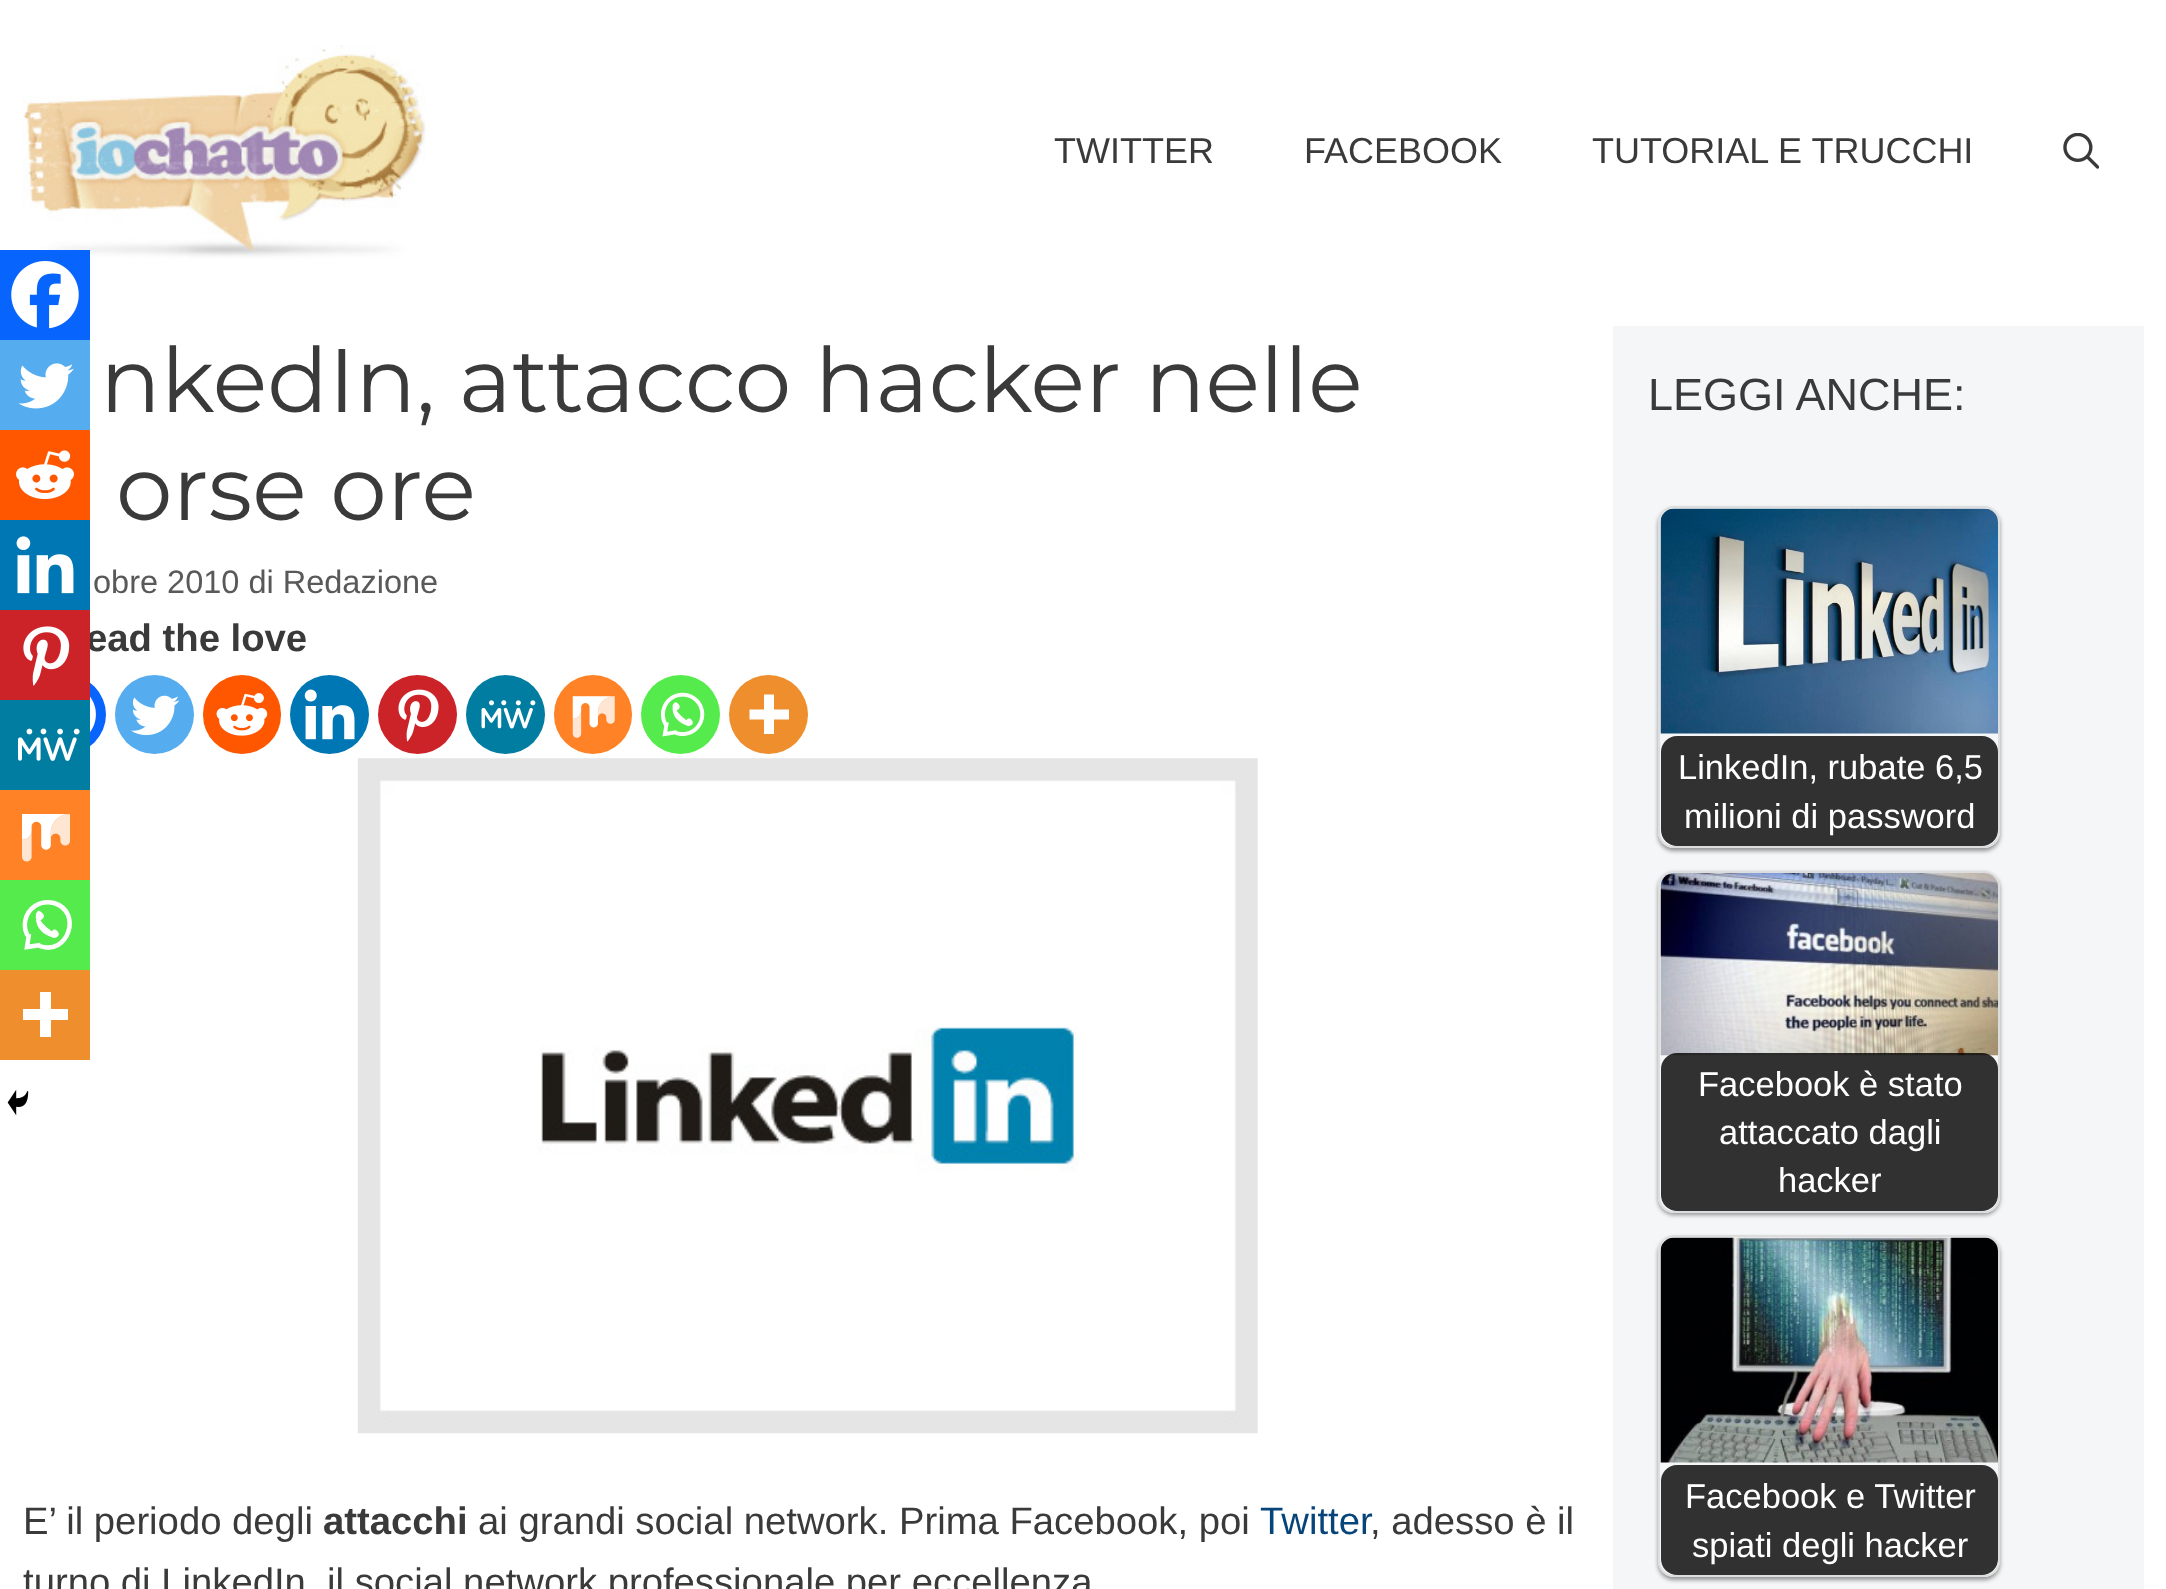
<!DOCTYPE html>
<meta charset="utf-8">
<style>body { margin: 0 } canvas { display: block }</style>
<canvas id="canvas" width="2166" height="1589"></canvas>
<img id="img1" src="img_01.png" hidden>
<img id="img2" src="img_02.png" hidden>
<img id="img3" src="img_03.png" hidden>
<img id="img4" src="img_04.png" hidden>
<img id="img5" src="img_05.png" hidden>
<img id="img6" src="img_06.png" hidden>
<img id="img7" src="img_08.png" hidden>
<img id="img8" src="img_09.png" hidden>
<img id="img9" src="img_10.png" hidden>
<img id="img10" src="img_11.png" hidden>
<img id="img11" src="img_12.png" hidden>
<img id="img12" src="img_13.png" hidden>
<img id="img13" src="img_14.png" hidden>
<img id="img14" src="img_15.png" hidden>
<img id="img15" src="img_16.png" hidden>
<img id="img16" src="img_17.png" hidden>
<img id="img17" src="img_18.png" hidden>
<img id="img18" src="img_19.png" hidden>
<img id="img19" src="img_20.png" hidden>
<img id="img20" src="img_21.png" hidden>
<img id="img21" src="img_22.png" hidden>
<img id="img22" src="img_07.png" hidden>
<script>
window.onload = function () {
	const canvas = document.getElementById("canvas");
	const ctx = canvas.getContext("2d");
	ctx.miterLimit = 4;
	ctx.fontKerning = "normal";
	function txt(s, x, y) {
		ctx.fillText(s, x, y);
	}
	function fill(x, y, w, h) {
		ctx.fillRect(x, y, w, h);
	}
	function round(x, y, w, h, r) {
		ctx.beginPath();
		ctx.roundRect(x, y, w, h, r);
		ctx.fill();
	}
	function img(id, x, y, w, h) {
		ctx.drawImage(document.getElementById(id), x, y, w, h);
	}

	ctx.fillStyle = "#FFFFFF";
	fill(0, 0, 2166, 1589);
	img("img1", 22, 45, 404, 214);
	img("img2", 2063, 133, 36, 36);
	ctx.fillStyle = "#0765FE";
	fill(0, 250, 90, 90);
	img("img3", 11, 261, 68, 68);
	ctx.fillStyle = "#55ACEE";
	fill(0, 340, 90, 90);
	img("img4", 18, 363, 56, 46);
	ctx.fillStyle = "#FF5700";
	fill(0, 430, 90, 90);
	img("img5", 16, 450, 58, 50);
	ctx.fillStyle = "#0077B5";
	fill(0, 520, 90, 90);
	img("img6", 16, 536, 58, 58);
	ctx.fillStyle = "#0765FE";
	ctx.beginPath();
	ctx.arc(66.5, 714.5, 39.5, 0, Math.PI * 2);
	ctx.fill();
	ctx.fillStyle = "#007DA1";
	fill(0, 700, 90, 90);
	img("img7", 18, 728, 62, 33);
	ctx.fillStyle = "#FF8226";
	fill(0, 790, 90, 90);
	img("img8", 22, 814, 48, 48);
	ctx.fillStyle = "#55EB4C";
	fill(0, 880, 90, 90);
	ctx.beginPath();
	ctx.moveTo(39.5, 946);
	ctx.bezierCurveTo(68, 956.5, 83, 912, 54, 903);
	ctx.bezierCurveTo(47.5, 901.5, 40.5, 902.5, 35, 906);
	ctx.bezierCurveTo(24.5, 913, 21.5, 927.5, 29, 937.5);
	ctx.moveTo(29, 934);
	ctx.lineTo(27, 947);
	ctx.lineTo(40.5, 945);
	ctx.strokeStyle = "#FFFFFF";
	ctx.lineWidth = 4.5;
	ctx.stroke();
	ctx.fillStyle = "#FFFFFF";
	ctx.beginPath();
	ctx.moveTo(36, 913.5);
	ctx.bezierCurveTo(34.5, 925.5, 40.5, 934, 54, 938);
	ctx.bezierCurveTo(65, 936, 54, 925, 52, 931.5);
	ctx.bezierCurveTo(46, 927, 42, 923, 40.5, 920);
	ctx.bezierCurveTo(49.5, 916, 38, 909, 38, 911);
	ctx.fill();
	ctx.fillStyle = "#EE8E2D";
	fill(0, 970, 90, 90);
	ctx.fillStyle = "#FFFFFF";
	ctx.beginPath();
	ctx.moveTo(51, 1009);
	ctx.lineTo(51, 992);
	ctx.lineTo(40, 992);
	ctx.lineTo(40, 1009);
	ctx.lineTo(23, 1009);
	ctx.lineTo(23, 1020);
	ctx.lineTo(40, 1020);
	ctx.lineTo(40, 1037);
	ctx.lineTo(51, 1037);
	ctx.lineTo(51, 1020);
	ctx.lineTo(68, 1020);
	ctx.lineTo(68, 1009);
	ctx.closePath();
	ctx.fill("evenodd");
	img("img9", 7, 1089, 22, 27);
	img("img10", 90, 696, 6, 36);
	ctx.fillStyle = "#55ACEE";
	ctx.beginPath();
	ctx.arc(154.5, 714.5, 39.5, 0, Math.PI * 2);
	ctx.fill();
	img("img11", 131, 695, 49, 41);
	ctx.fillStyle = "#FF5700";
	round(203, 675, 78, 79, 39);
	img("img12", 216, 693, 52, 43);
	ctx.fillStyle = "#0077B5";
	ctx.beginPath();
	ctx.arc(329.5, 714.5, 39.5, 0, Math.PI * 2);
	ctx.fill();
	img("img13", 304, 689, 51, 51);
	ctx.fillStyle = "#CC2329";
	ctx.beginPath();
	ctx.arc(417.5, 714.5, 39.5, 0, Math.PI * 2);
	ctx.fill();
	img("img14", 398, 689, 41, 53);
	ctx.fillStyle = "#007DA1";
	ctx.beginPath();
	ctx.arc(505.5, 714.5, 39.5, 0, Math.PI * 2);
	ctx.fill();
	img("img15", 481, 700, 55, 29);
	ctx.fillStyle = "#FF8226";
	round(554, 675, 78, 79, 39);
	img("img16", 572, 696, 43, 42);
	ctx.fillStyle = "#55EB4C";
	ctx.beginPath();
	ctx.arc(680.5, 714.5, 39.5, 0, Math.PI * 2);
	ctx.fill();
	img("img17", 660, 692, 45, 45);
	ctx.fillStyle = "#EE8E2D";
	ctx.beginPath();
	ctx.arc(768.5, 714.5, 39.5, 0, Math.PI * 2);
	ctx.fill();
	ctx.fillStyle = "#FFFFFF";
	ctx.beginPath();
	ctx.moveTo(774, 709.5);
	ctx.lineTo(774, 694.5);
	ctx.lineTo(764, 694.5);
	ctx.lineTo(764, 709.5);
	ctx.lineTo(749.5, 709.5);
	ctx.lineTo(749.5, 719.5);
	ctx.lineTo(764, 719.5);
	ctx.lineTo(764, 734);
	ctx.lineTo(774, 734);
	ctx.lineTo(774, 719.5);
	ctx.lineTo(789, 719.5);
	ctx.lineTo(789, 709.5);
	ctx.closePath();
	ctx.fill("evenodd");
	img("img18", 357, 758, 901, 676);
	ctx.fillStyle = "#F4F6F7";
	fill(1613, 326, 531, 1263);
	ctx.save();
	ctx.beginPath();
	ctx.moveTo(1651, 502);
	ctx.lineTo(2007, 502);
	ctx.lineTo(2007, 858);
	ctx.lineTo(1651, 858);
	ctx.closePath();
	ctx.moveTo(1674, 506);
	ctx.lineTo(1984, 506);
	ctx.bezierCurveTo(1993, 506, 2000, 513, 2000, 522);
	ctx.lineTo(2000, 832);
	ctx.bezierCurveTo(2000, 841, 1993, 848, 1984, 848);
	ctx.lineTo(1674, 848);
	ctx.bezierCurveTo(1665, 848, 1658, 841, 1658, 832);
	ctx.lineTo(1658, 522);
	ctx.bezierCurveTo(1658, 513, 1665, 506, 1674, 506);
	ctx.closePath();
	ctx.clip("evenodd");
	ctx.fillStyle = "rgba(0, 0, 0, 0.4)";
	ctx.filter = "blur(2px)";
	ctx.beginPath();
	ctx.roundRect(1658, 509, 342, 342, 16);
	ctx.fill();
	ctx.filter = "none";
	ctx.restore();
	ctx.beginPath();
	ctx.roundRect(1659, 507, 340, 340, 15);
	ctx.strokeStyle = "#DDDDDD";
	ctx.lineWidth = 2;
	ctx.stroke();
	img("img19", 1660, 508, 338, 226);
	ctx.save();
	ctx.beginPath();
	ctx.roundRect(1661, 509, 337, 337, 14);
	ctx.clip();
	ctx.fillStyle = "rgba(0, 0, 0, 0.8)";
	round(1661, 736, 337, 110, 16);
	ctx.restore();
	ctx.save();
	ctx.beginPath();
	ctx.moveTo(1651, 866);
	ctx.lineTo(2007, 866);
	ctx.lineTo(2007, 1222);
	ctx.lineTo(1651, 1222);
	ctx.closePath();
	ctx.moveTo(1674, 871);
	ctx.lineTo(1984, 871);
	ctx.bezierCurveTo(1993, 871, 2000, 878, 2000, 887);
	ctx.lineTo(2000, 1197);
	ctx.bezierCurveTo(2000, 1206, 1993, 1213, 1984, 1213);
	ctx.lineTo(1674, 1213);
	ctx.bezierCurveTo(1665, 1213, 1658, 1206, 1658, 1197);
	ctx.lineTo(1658, 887);
	ctx.bezierCurveTo(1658, 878, 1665, 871, 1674, 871);
	ctx.closePath();
	ctx.clip("evenodd");
	ctx.fillStyle = "rgba(0, 0, 0, 0.4)";
	ctx.filter = "blur(2px)";
	ctx.beginPath();
	ctx.roundRect(1658, 873, 342, 342, 16);
	ctx.fill();
	ctx.filter = "none";
	ctx.restore();
	ctx.beginPath();
	ctx.roundRect(1659, 872, 340, 340, 15);
	ctx.stroke();
	img("img20", 1660, 873, 338, 183);
	ctx.save();
	ctx.beginPath();
	ctx.roundRect(1661, 873, 337, 338, 14);
	ctx.clip();
	ctx.fillStyle = "rgba(0, 0, 0, 0.8)";
	round(1661, 1053, 337, 158, 16);
	ctx.restore();
	ctx.save();
	ctx.beginPath();
	ctx.moveTo(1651, 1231);
	ctx.lineTo(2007, 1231);
	ctx.lineTo(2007, 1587);
	ctx.lineTo(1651, 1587);
	ctx.closePath();
	ctx.moveTo(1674, 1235);
	ctx.lineTo(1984, 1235);
	ctx.bezierCurveTo(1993, 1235, 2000, 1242, 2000, 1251);
	ctx.lineTo(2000, 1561);
	ctx.bezierCurveTo(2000, 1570, 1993, 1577, 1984, 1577);
	ctx.lineTo(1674, 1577);
	ctx.bezierCurveTo(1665, 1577, 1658, 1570, 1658, 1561);
	ctx.lineTo(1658, 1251);
	ctx.bezierCurveTo(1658, 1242, 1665, 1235, 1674, 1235);
	ctx.closePath();
	ctx.clip("evenodd");
	ctx.fillStyle = "rgba(0, 0, 0, 0.4)";
	ctx.filter = "blur(2px)";
	ctx.beginPath();
	ctx.roundRect(1658, 1238, 342, 342, 16);
	ctx.fill();
	ctx.filter = "none";
	ctx.restore();
	ctx.beginPath();
	ctx.roundRect(1659, 1236, 340, 340, 15);
	ctx.stroke();
	img("img21", 1660, 1237, 338, 226);
	ctx.save();
	ctx.beginPath();
	ctx.roundRect(1661, 1238, 337, 337, 14);
	ctx.clip();
	ctx.fillStyle = "rgba(0, 0, 0, 0.8)";
	round(1661, 1465, 337, 110, 16);
	ctx.restore();
	ctx.font = "36px Liberation Sans";
	ctx.fillStyle = "#3A3A3A";
	txt("TWITTER", 1054, 163);
	txt("FACEBOOK", 1304, 163);
	txt("TUTORIAL E TRUCCHI", 1592, 163);
	ctx.font = "90px Montserrat";
	txt("nkedIn, attacco hacker nelle", 100, 412);
	txt("orse ore", 116, 520);
	ctx.font = "32.5px Liberation Sans";
	ctx.fillStyle = "#595959";
	txt("obre 2010 di Redazione", 93, 593);
	ctx.font = "bold 38.25px Liberation Sans";
	ctx.fillStyle = "#3A3A3A";
	txt("ead the love", 86, 651);
	ctx.fillStyle = "#CC2329";
	fill(0, 610, 90, 90);
	img("img22", 23, 626, 47, 60);
	ctx.font = "38.25px Liberation Sans";
	ctx.fillStyle = "#3A3A3A";
	txt("E’ il periodo degli", 23, 1534);
	ctx.font = "bold 38.25px Liberation Sans";
	txt("attacchi", 323, 1534);
	ctx.font = "38.25px Liberation Sans";
	txt("ai grandi social network. Prima Facebook, poi", 478, 1534);
	ctx.fillStyle = "#06447A";
	txt("Twitter", 1260, 1534);
	ctx.fillStyle = "#3A3A3A";
	txt(", adesso è il", 1370, 1534);
	txt("turno di LinkedIn, il social network professionale per eccellenza", 23, 1595);
	ctx.font = "45px Liberation Sans";
	txt("LEGGI ANCHE:", 1648, 410);
	ctx.font = "34.5px Liberation Sans";
	ctx.fillStyle = "#FFFFFF";
	txt("LinkedIn, rubate 6,5", 1678, 779);
	txt("milioni di password", 1684, 828);
	txt("Facebook è stato", 1698, 1096);
	txt("attaccato dagli", 1719, 1144);
	txt("hacker", 1778, 1192);
	txt("Facebook e Twitter", 1685, 1508);
	txt("spiati degli hacker", 1692, 1557);
};
</script>
